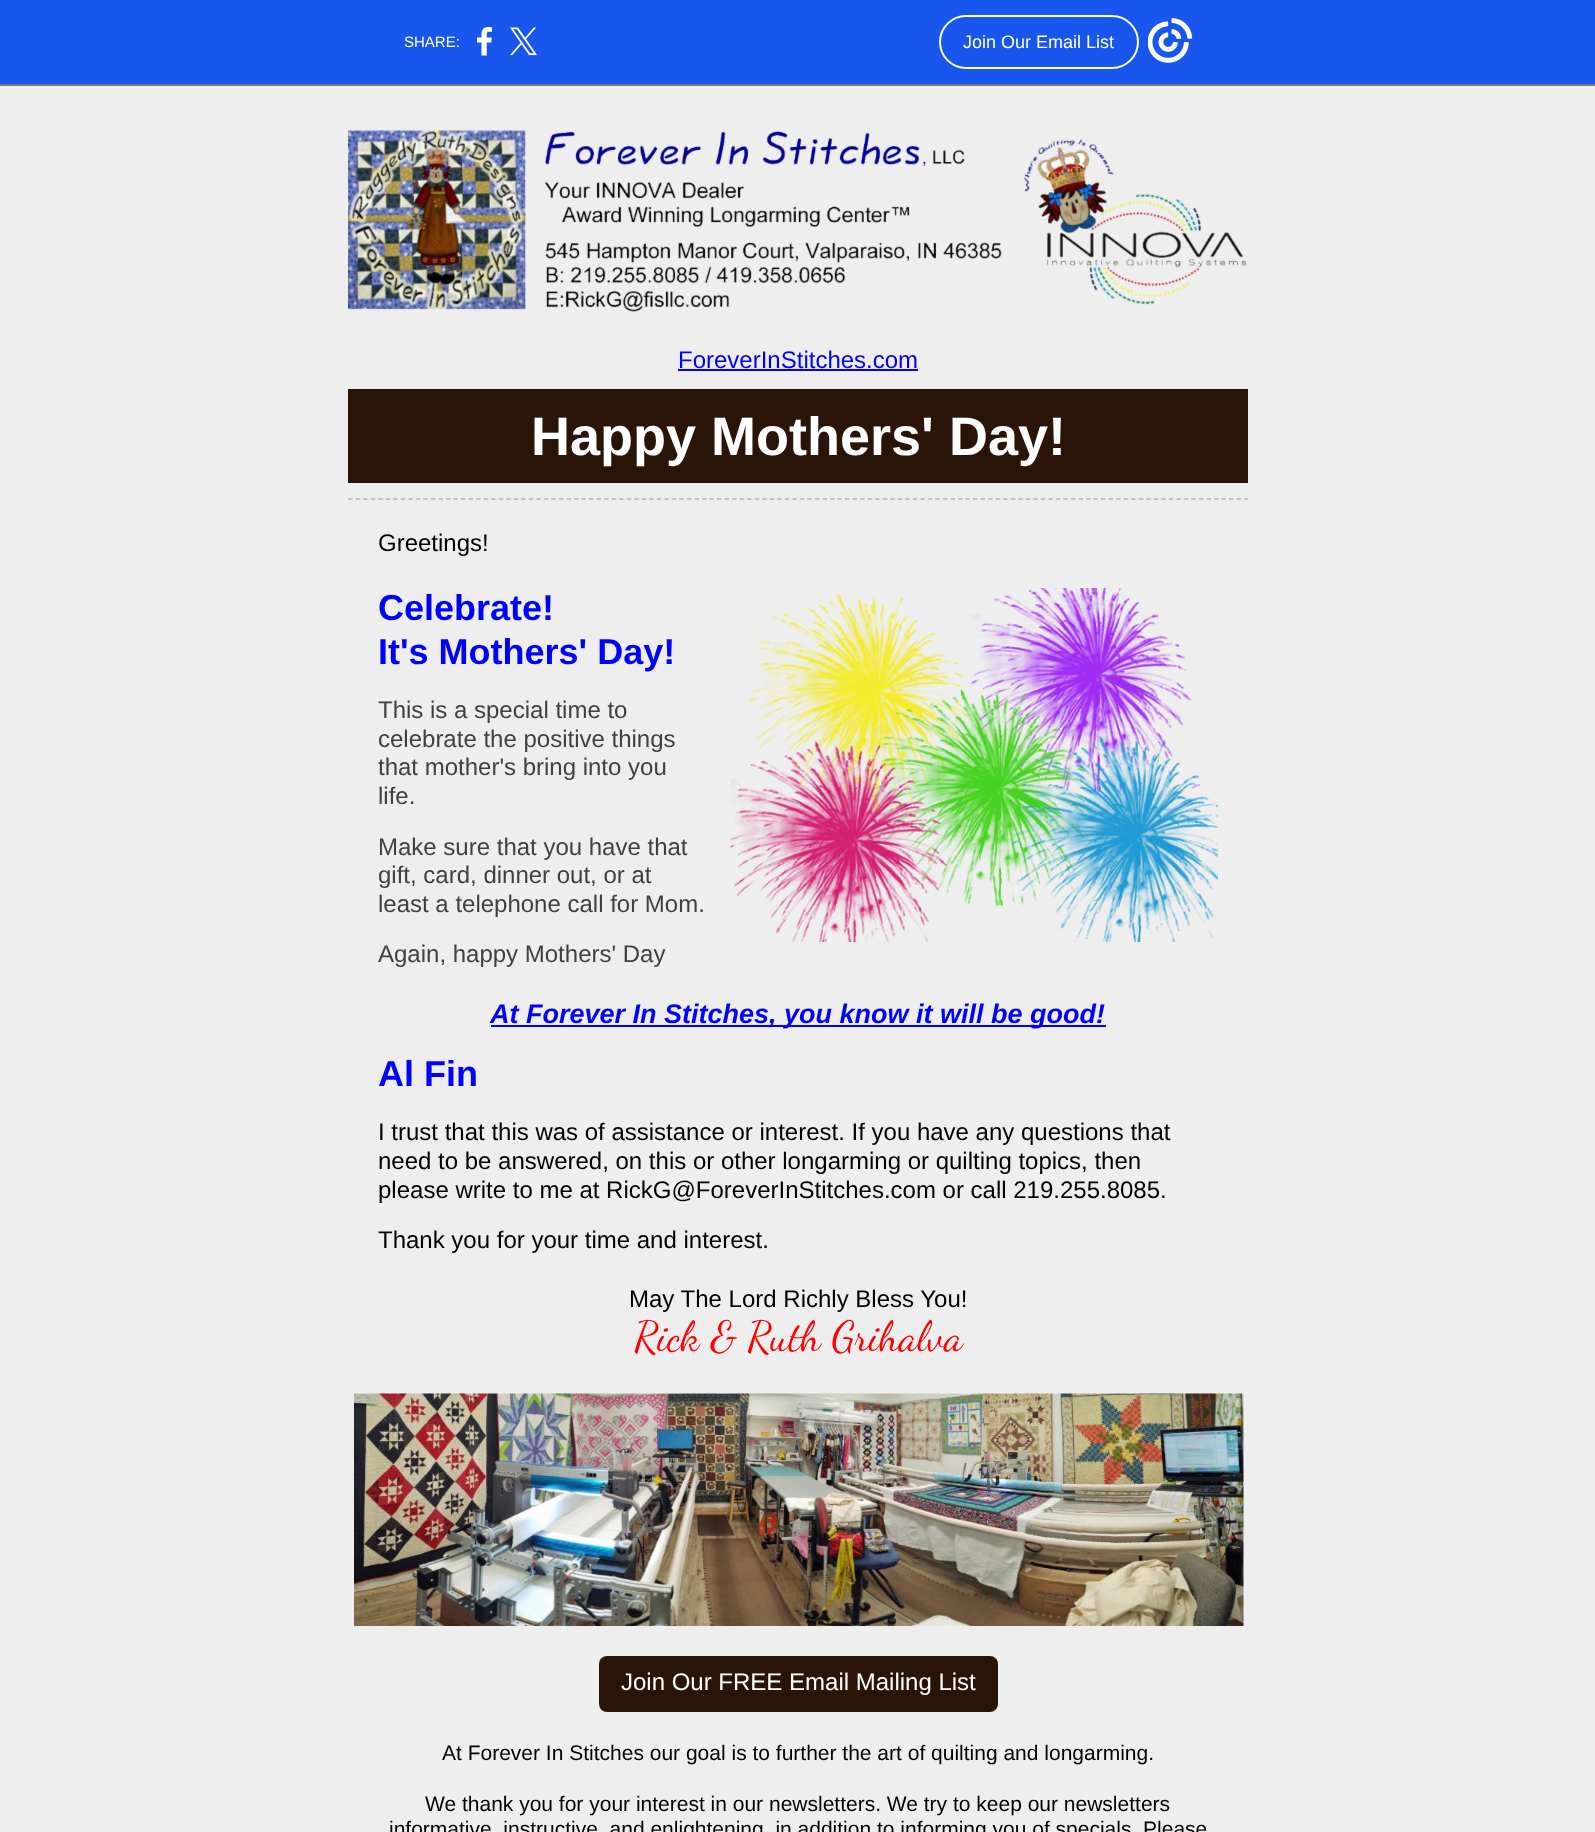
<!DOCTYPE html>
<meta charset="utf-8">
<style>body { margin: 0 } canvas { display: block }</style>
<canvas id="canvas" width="1595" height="1832"></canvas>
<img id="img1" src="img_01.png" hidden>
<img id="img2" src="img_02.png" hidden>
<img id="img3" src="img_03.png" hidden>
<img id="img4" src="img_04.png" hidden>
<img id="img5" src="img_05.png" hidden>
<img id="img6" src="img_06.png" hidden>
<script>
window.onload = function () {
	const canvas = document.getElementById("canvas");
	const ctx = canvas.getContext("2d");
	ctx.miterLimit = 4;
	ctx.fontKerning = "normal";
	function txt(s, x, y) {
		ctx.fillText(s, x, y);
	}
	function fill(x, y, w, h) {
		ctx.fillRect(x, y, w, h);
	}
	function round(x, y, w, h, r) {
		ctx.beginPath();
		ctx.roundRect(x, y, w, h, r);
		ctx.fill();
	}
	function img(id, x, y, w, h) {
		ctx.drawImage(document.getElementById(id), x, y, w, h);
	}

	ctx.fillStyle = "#EEEEEE";
	fill(0, 0, 1595, 1832);
	ctx.fillStyle = "#1856ED";
	fill(0, 0, 1595, 84);
	ctx.fillStyle = "#7A7A7A";
	fill(0, 84, 1595, 2);
	img("img1", 477, 27, 15, 29);
	img("img2", 510, 27, 27, 29);
	ctx.beginPath();
	ctx.roundRect(940, 16, 198, 52, 26);
	ctx.strokeStyle = "#FFFFFF";
	ctx.lineWidth = 2;
	ctx.stroke();
	img("img3", 1148, 18, 45, 45);
	img("img4", 348, 129, 899, 183);
	ctx.fillStyle = "#0000FF";
	fill(678, 369, 240, 2);
	ctx.fillStyle = "#2A1407";
	fill(348, 389, 900, 94);
	ctx.beginPath();
	ctx.moveTo(348, 499);
	ctx.lineTo(1248, 499);
	ctx.strokeStyle = "#B3B3B3";
	ctx.lineWidth = 1.5;
	ctx.setLineDash([4.5, 3.03]);
	ctx.stroke();
	img("img5", 730, 588, 488, 354);
	ctx.fillStyle = "#0000FF";
	fill(491, 1025, 615, 2);
	img("img6", 354, 1393, 890, 233);
	ctx.fillStyle = "#2A1407";
	round(599, 1656, 399, 56, 8);
	ctx.font = "15px Liberation Sans";
	ctx.fillStyle = "#FFFFFF";
	txt("SHARE:", 404, 47);
	ctx.font = "18px Liberation Sans";
	txt("Join Our Email List", 963, 48);
	ctx.font = "24px Liberation Sans";
	ctx.fillStyle = "#0000FF";
	txt("ForeverInStitches.com", 678, 368);
	ctx.font = "bold 54px Liberation Sans";
	ctx.fillStyle = "#FFFFFF";
	txt("Happy Mothers' Day!", 531, 455);
	ctx.font = "24px Liberation Sans";
	ctx.fillStyle = "#000000";
	txt("Greetings!", 378, 551);
	ctx.font = "bold 36px Liberation Sans";
	ctx.fillStyle = "#0000FF";
	txt("Celebrate!", 378, 620);
	txt("It's Mothers' Day!", 378, 664);
	ctx.font = "24px Liberation Sans";
	ctx.fillStyle = "#403F42";
	txt("This is a special time to", 378, 718);
	txt("celebrate the positive things", 378, 747);
	txt("that mother's bring into you", 378, 775);
	txt("life.", 378, 804);
	txt("Make sure that you have that", 378, 855);
	txt("gift, card, dinner out, or at", 378, 883);
	txt("least a telephone call for Mom.", 378, 912);
	txt("Again, happy Mothers' Day", 378, 962);
	ctx.font = "italic bold 27px Liberation Sans";
	ctx.fillStyle = "#0000FF";
	txt("At Forever In Stitches, you know it will be good!", 490, 1023);
	ctx.font = "bold 36px Liberation Sans";
	txt("Al Fin", 378, 1086);
	ctx.font = "24px Liberation Sans";
	ctx.fillStyle = "#000000";
	txt("I trust that this was of assistance or interest. If you have any questions that", 378, 1140);
	txt("need to be answered, on this or other longarming or quilting topics, then", 378, 1169);
	txt("please write to me at RickG@ForeverInStitches.com or call 219.255.8085.", 378, 1198);
	txt("Thank you for your time and interest.", 378, 1248);
	txt("May The Lord Richly Bless You!", 629, 1307);
	ctx.font = "42px Dancing Script";
	ctx.fillStyle = "#FF0000";
	txt("Rick & Ruth Grihalva", 634, 1350);
	ctx.font = "24px Liberation Sans";
	ctx.fillStyle = "#FFFFFF";
	txt("Join Our FREE Email Mailing List", 621, 1690);
	ctx.font = "21px Liberation Sans";
	ctx.fillStyle = "#000000";
	txt("At Forever In Stitches our goal is to further the art of quilting and longarming.", 442, 1760);
	txt("We thank you for your interest in our newsletters. We try to keep our newsletters", 425, 1811);
	txt("informative, instructive, and enlightening, in addition to informing you of specials. Please", 389, 1836);
};
</script>
